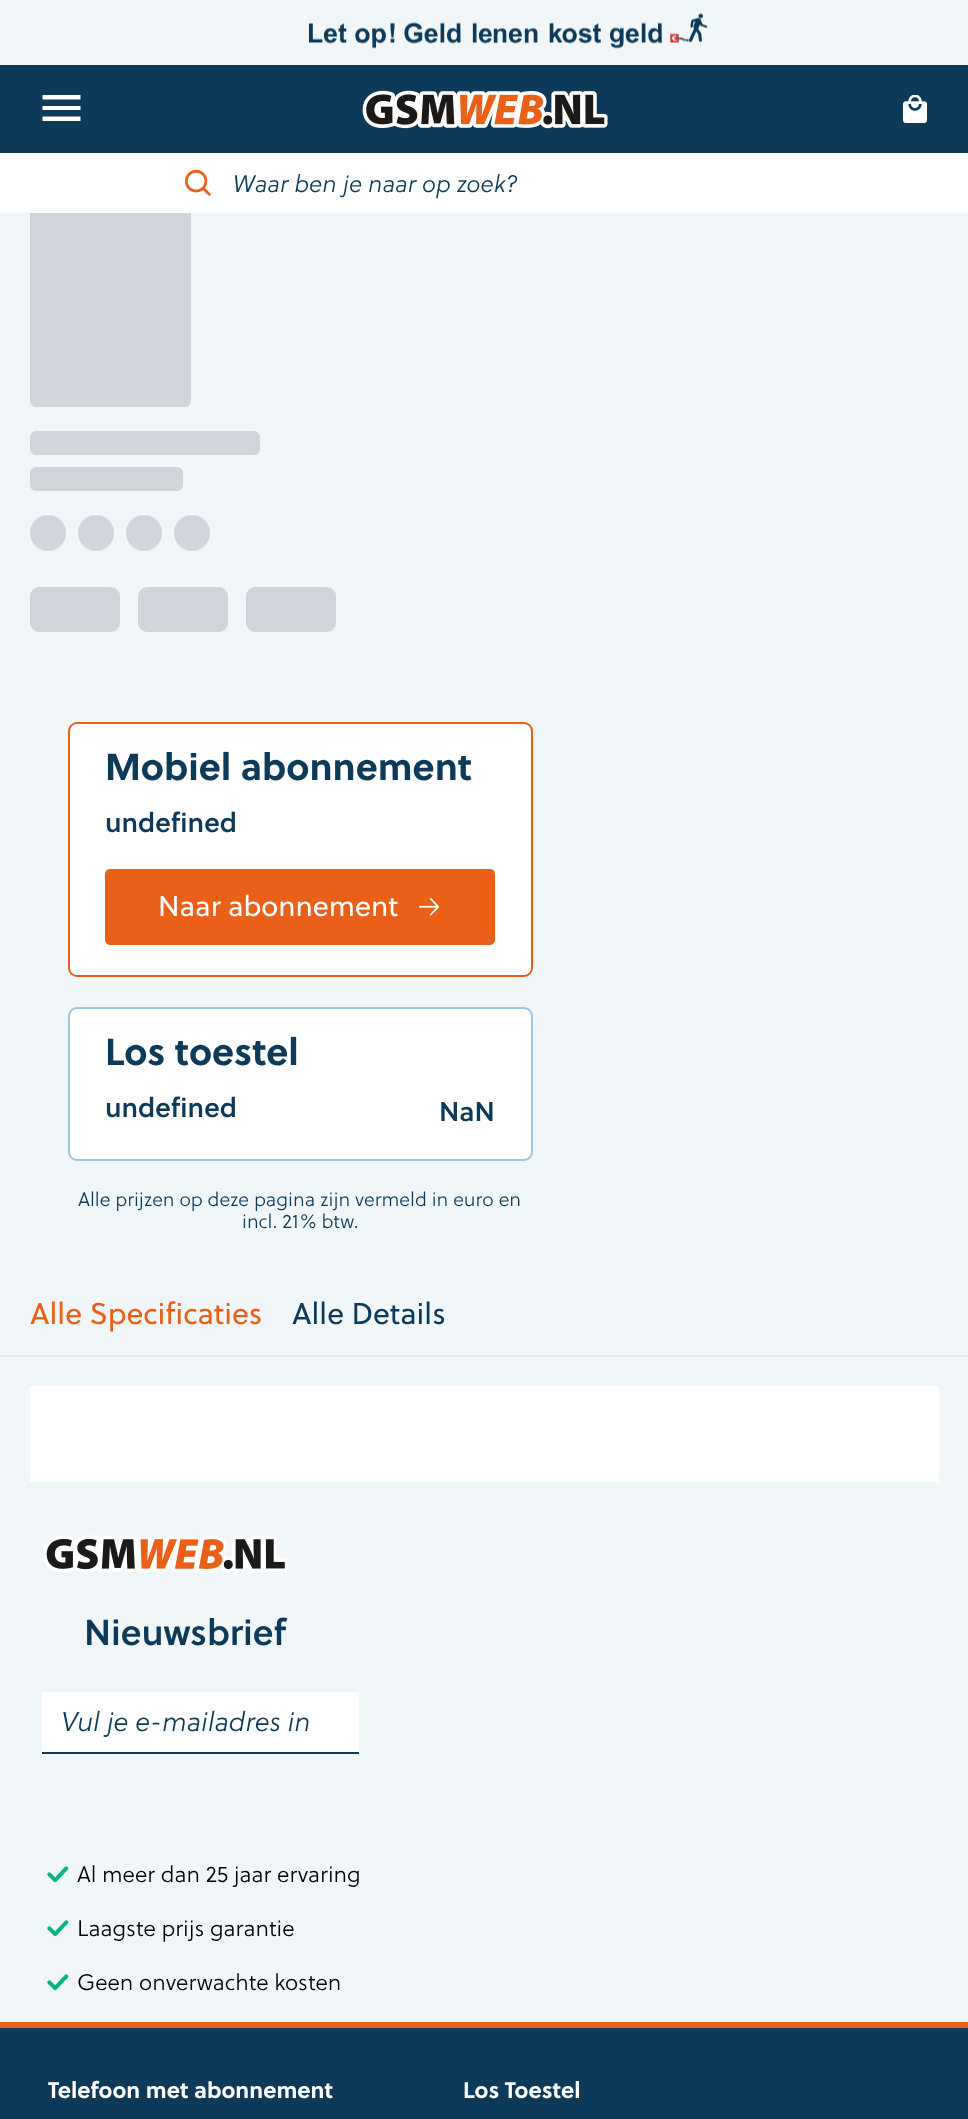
<!DOCTYPE html>
<meta charset="utf-8">
<style>body { margin: 0 } canvas { display: block }</style>
<canvas id="canvas" width="968" height="2119"></canvas>
<img id="img1" src="img_01.png" hidden>
<img id="img2" src="img_02.png" hidden>
<img id="img3" src="img_03.png" hidden>
<img id="img4" src="img_04.png" hidden>
<img id="img5" src="img_05.png" hidden>
<img id="img6" src="img_06.png" hidden>
<img id="img7" src="img_07.png" hidden>
<script>
window.onload = function () {
	const canvas = document.getElementById("canvas");
	const ctx = canvas.getContext("2d");
	ctx.miterLimit = 4;
	ctx.fontKerning = "normal";
	function txt(s, x, y) {
		ctx.fillText(s, x, y);
	}
	function fill(x, y, w, h) {
		ctx.fillRect(x, y, w, h);
	}
	function round(x, y, w, h, r) {
		ctx.beginPath();
		ctx.roundRect(x, y, w, h, r);
		ctx.fill();
	}
	function img(id, x, y, w, h) {
		ctx.drawImage(document.getElementById(id), x, y, w, h);
	}

	ctx.fillStyle = "#F1F6F9";
	fill(0, 0, 968, 2119);
	img("img1", 309, 13, 399, 36);
	ctx.fillStyle = "#0E3A59";
	fill(0, 65, 968, 88);
	ctx.fillStyle = "#FFFFFF";
	ctx.beginPath();
	ctx.moveTo(42.5, 121);
	ctx.lineTo(42.5, 116.5);
	ctx.lineTo(80.5, 116.5);
	ctx.lineTo(80.5, 121);
	ctx.closePath();
	ctx.moveTo(42.5, 110);
	ctx.lineTo(42.5, 106);
	ctx.lineTo(80.5, 106);
	ctx.lineTo(80.5, 110);
	ctx.closePath();
	ctx.moveTo(42.5, 99.5);
	ctx.lineTo(42.5, 95);
	ctx.lineTo(80.5, 95);
	ctx.lineTo(80.5, 99.5);
	ctx.closePath();
	ctx.fill();
	img("img2", 903, 95, 24, 28);
	img("img3", 362, 90, 246, 39);
	ctx.fillStyle = "#D1D5DB";
	round(30, 206, 161, 201, 6);
	ctx.fillStyle = "#FFFFFF";
	fill(0, 153, 968, 60);
	img("img4", 184, 169, 27, 27);
	ctx.fillStyle = "#D1D5DB";
	round(30, 431, 230, 24, 6);
	round(30, 467, 153, 24, 6);
	ctx.beginPath();
	ctx.arc(48, 533, 18, 0, Math.PI * 2);
	ctx.fill();
	ctx.beginPath();
	ctx.arc(96, 533, 18, 0, Math.PI * 2);
	ctx.fill();
	ctx.beginPath();
	ctx.arc(144, 533, 18, 0, Math.PI * 2);
	ctx.fill();
	ctx.beginPath();
	ctx.arc(192, 533, 18, 0, Math.PI * 2);
	ctx.fill();
	round(30, 587, 90, 45, 9);
	round(138, 587, 90, 45, 9);
	round(246, 587, 90, 45, 9);
	ctx.fillStyle = "#FFFFFF";
	ctx.beginPath();
	ctx.roundRect(69, 723, 463, 253, 8);
	ctx.fill();
	ctx.strokeStyle = "#EA6018";
	ctx.lineWidth = 2;
	ctx.stroke();
	ctx.fillStyle = "#EA6018";
	round(105, 869, 390, 76, 5);
	img("img5", 418, 897, 22, 19);
	ctx.fillStyle = "#FFFFFF";
	ctx.beginPath();
	ctx.roundRect(69, 1008, 463, 152, 8);
	ctx.fill();
	ctx.strokeStyle = "#9BC5E3";
	ctx.stroke();
	ctx.fillStyle = "#E5E7EB";
	fill(0, 1355, 968, 2);
	ctx.fillStyle = "#FFFFFF";
	fill(30, 1386, 909, 96);
	img("img6", 43, 1535, 245, 38);
	fill(42, 1692, 317, 60);
	ctx.fillStyle = "#0E3A59";
	fill(42, 1752, 317, 2);
	img("img7", 47, 1866, 22, 17);
	img("img7", 47, 1920, 22, 17);
	img("img7", 47, 1974, 22, 17);
	fill(0, 2028, 968, 91);
	ctx.fillStyle = "#EA6018";
	fill(0, 2022, 968, 6);
	ctx.font = "italic 300 24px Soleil";
	ctx.fillStyle = "#0E3A59";
	txt("Waar ben je naar op zoek?", 233, 192);
	ctx.font = "bold 37.5px Soleil";
	txt("Mobiel abonnement", 105, 780);
	ctx.font = "600 27px Soleil";
	txt("undefined", 105, 832);
	ctx.font = "28.5px Soleil";
	ctx.fillStyle = "#FFFFFF";
	txt("Naar abonnement", 158, 916);
	ctx.font = "bold 37.5px Soleil";
	ctx.fillStyle = "#0E3A59";
	txt("Los toestel", 105, 1065);
	ctx.font = "600 27px Soleil";
	txt("undefined", 105, 1117);
	txt("NaN", 439, 1121);
	ctx.font = "300 19.5px Soleil";
	txt("Alle prijzen op deze pagina zijn vermeld in euro en", 78, 1206);
	txt("incl. 21% btw.", 242, 1228);
	ctx.font = "30px Soleil";
	ctx.fillStyle = "#EA6018";
	txt("Alle Specificaties", 30, 1324);
	ctx.fillStyle = "#0E3A59";
	txt("Alle Details", 292, 1324);
	ctx.font = "600 36px Soleil";
	txt("Nieuwsbrief", 84, 1645);
	ctx.font = "italic 300 27px Soleil";
	txt("Vul je e-mailadres in", 61, 1731);
	ctx.font = "300 22.5px Soleil";
	ctx.fillStyle = "#000000";
	txt("Al meer dan 25 jaar ervaring", 77, 1882);
	txt("Laagste prijs garantie", 77, 1936);
	txt("Geen onverwachte kosten", 77, 1990);
	ctx.font = "bold 22.5px Soleil";
	ctx.fillStyle = "#FFFFFF";
	txt("Telefoon met abonnement", 48, 2098);
	txt("Los Toestel", 463, 2098);
};
</script>
